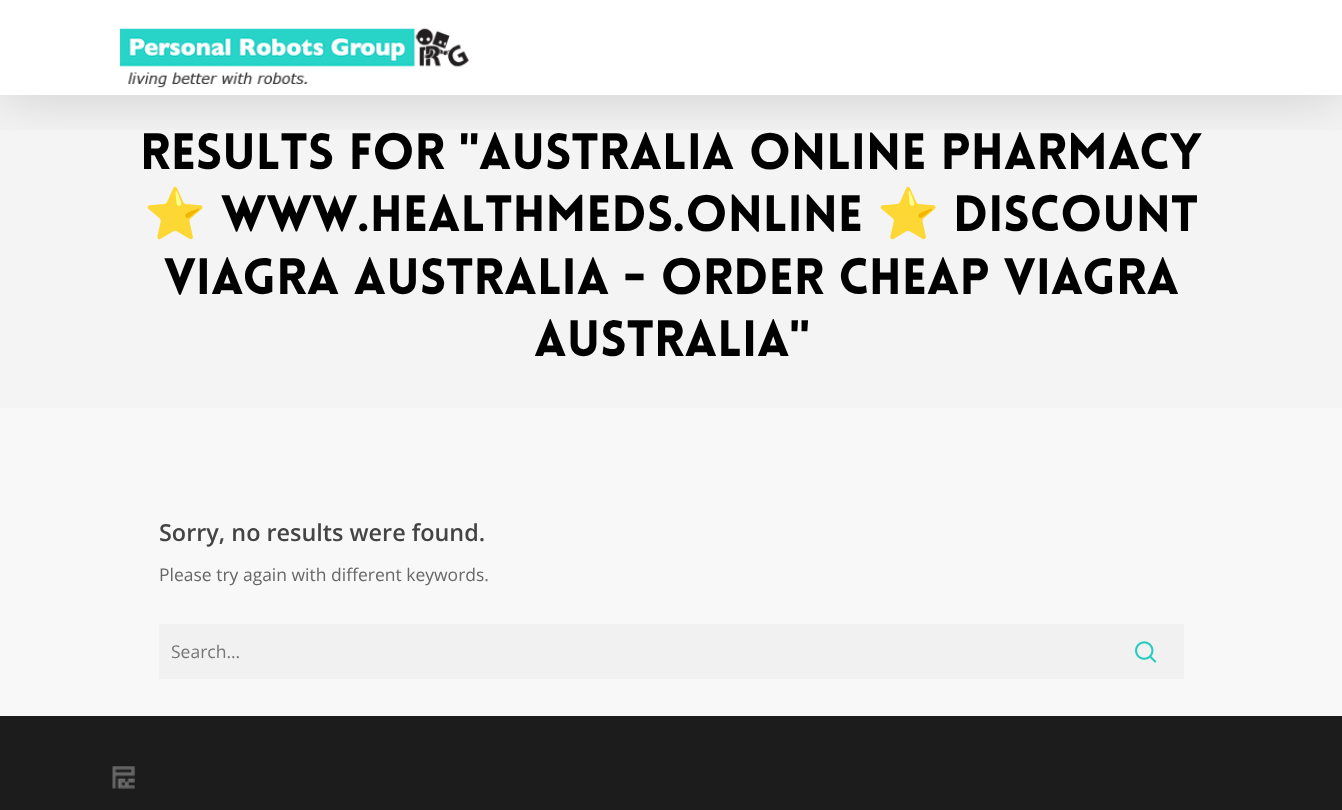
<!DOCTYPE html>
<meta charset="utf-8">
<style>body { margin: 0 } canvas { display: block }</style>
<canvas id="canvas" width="1342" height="810"></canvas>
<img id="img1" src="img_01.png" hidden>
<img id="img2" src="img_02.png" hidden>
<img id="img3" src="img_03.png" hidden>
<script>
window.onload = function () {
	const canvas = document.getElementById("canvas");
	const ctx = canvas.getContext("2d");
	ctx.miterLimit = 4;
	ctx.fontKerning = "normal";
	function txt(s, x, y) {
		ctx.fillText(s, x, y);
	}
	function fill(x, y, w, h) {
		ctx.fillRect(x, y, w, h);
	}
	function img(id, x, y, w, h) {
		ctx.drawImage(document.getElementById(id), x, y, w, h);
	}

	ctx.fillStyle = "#FFFFFF";
	fill(0, 0, 1342, 810);
	ctx.fillStyle = "#F4F4F4";
	fill(0, 95, 1342, 313);
	ctx.save();
	ctx.beginPath();
	ctx.rect(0, 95, 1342, 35);
	ctx.clip();
	ctx.fillStyle = "rgba(0, 0, 0, 0.15)";
	ctx.filter = "blur(28px)";
	ctx.beginPath();
	ctx.rect(0, 4, 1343, 95);
	ctx.fill();
	ctx.filter = "none";
	ctx.restore();
	img("img1", 120, 28, 349, 60);
	ctx.fillStyle = "#F8F8F8";
	fill(0, 408, 1342, 308);
	ctx.fillStyle = "#F1F1F1";
	fill(159, 624, 1025, 55);
	img("img2", 1135, 641, 22, 22);
	ctx.fillStyle = "#1C1C1C";
	fill(0, 716, 1342, 94);
	img("img3", 112, 766, 23, 23);
	ctx.font = "900 50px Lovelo";
	ctx.fillStyle = "#000000";
	txt("Results For \"Australia Online Pharmacy", 140, 169);
	ctx.font = "bold 50px Noto Color Emoji";
	txt("⭐", 144, 231);
	ctx.font = "900 50px Lovelo";
	txt("www.HealthMeds.online", 221, 231);
	ctx.font = "bold 50px Noto Color Emoji";
	txt("⭐", 877, 231);
	ctx.font = "900 50px Lovelo";
	txt("Discount", 953, 231);
	txt("Viagra Australia - Order Cheap Viagra", 164, 294);
	txt("Australia\"", 534, 356);
	ctx.font = "600 23.4px Open Sans";
	ctx.fillStyle = "#444444";
	txt("Sorry, no results were found.", 159, 541);
	ctx.font = "17.5px Open Sans";
	ctx.fillStyle = "#676767";
	txt("Please try again with different keywords.", 159, 581);
	ctx.fillStyle = "#757575";
	txt("Search...", 171, 658);
};
</script>
